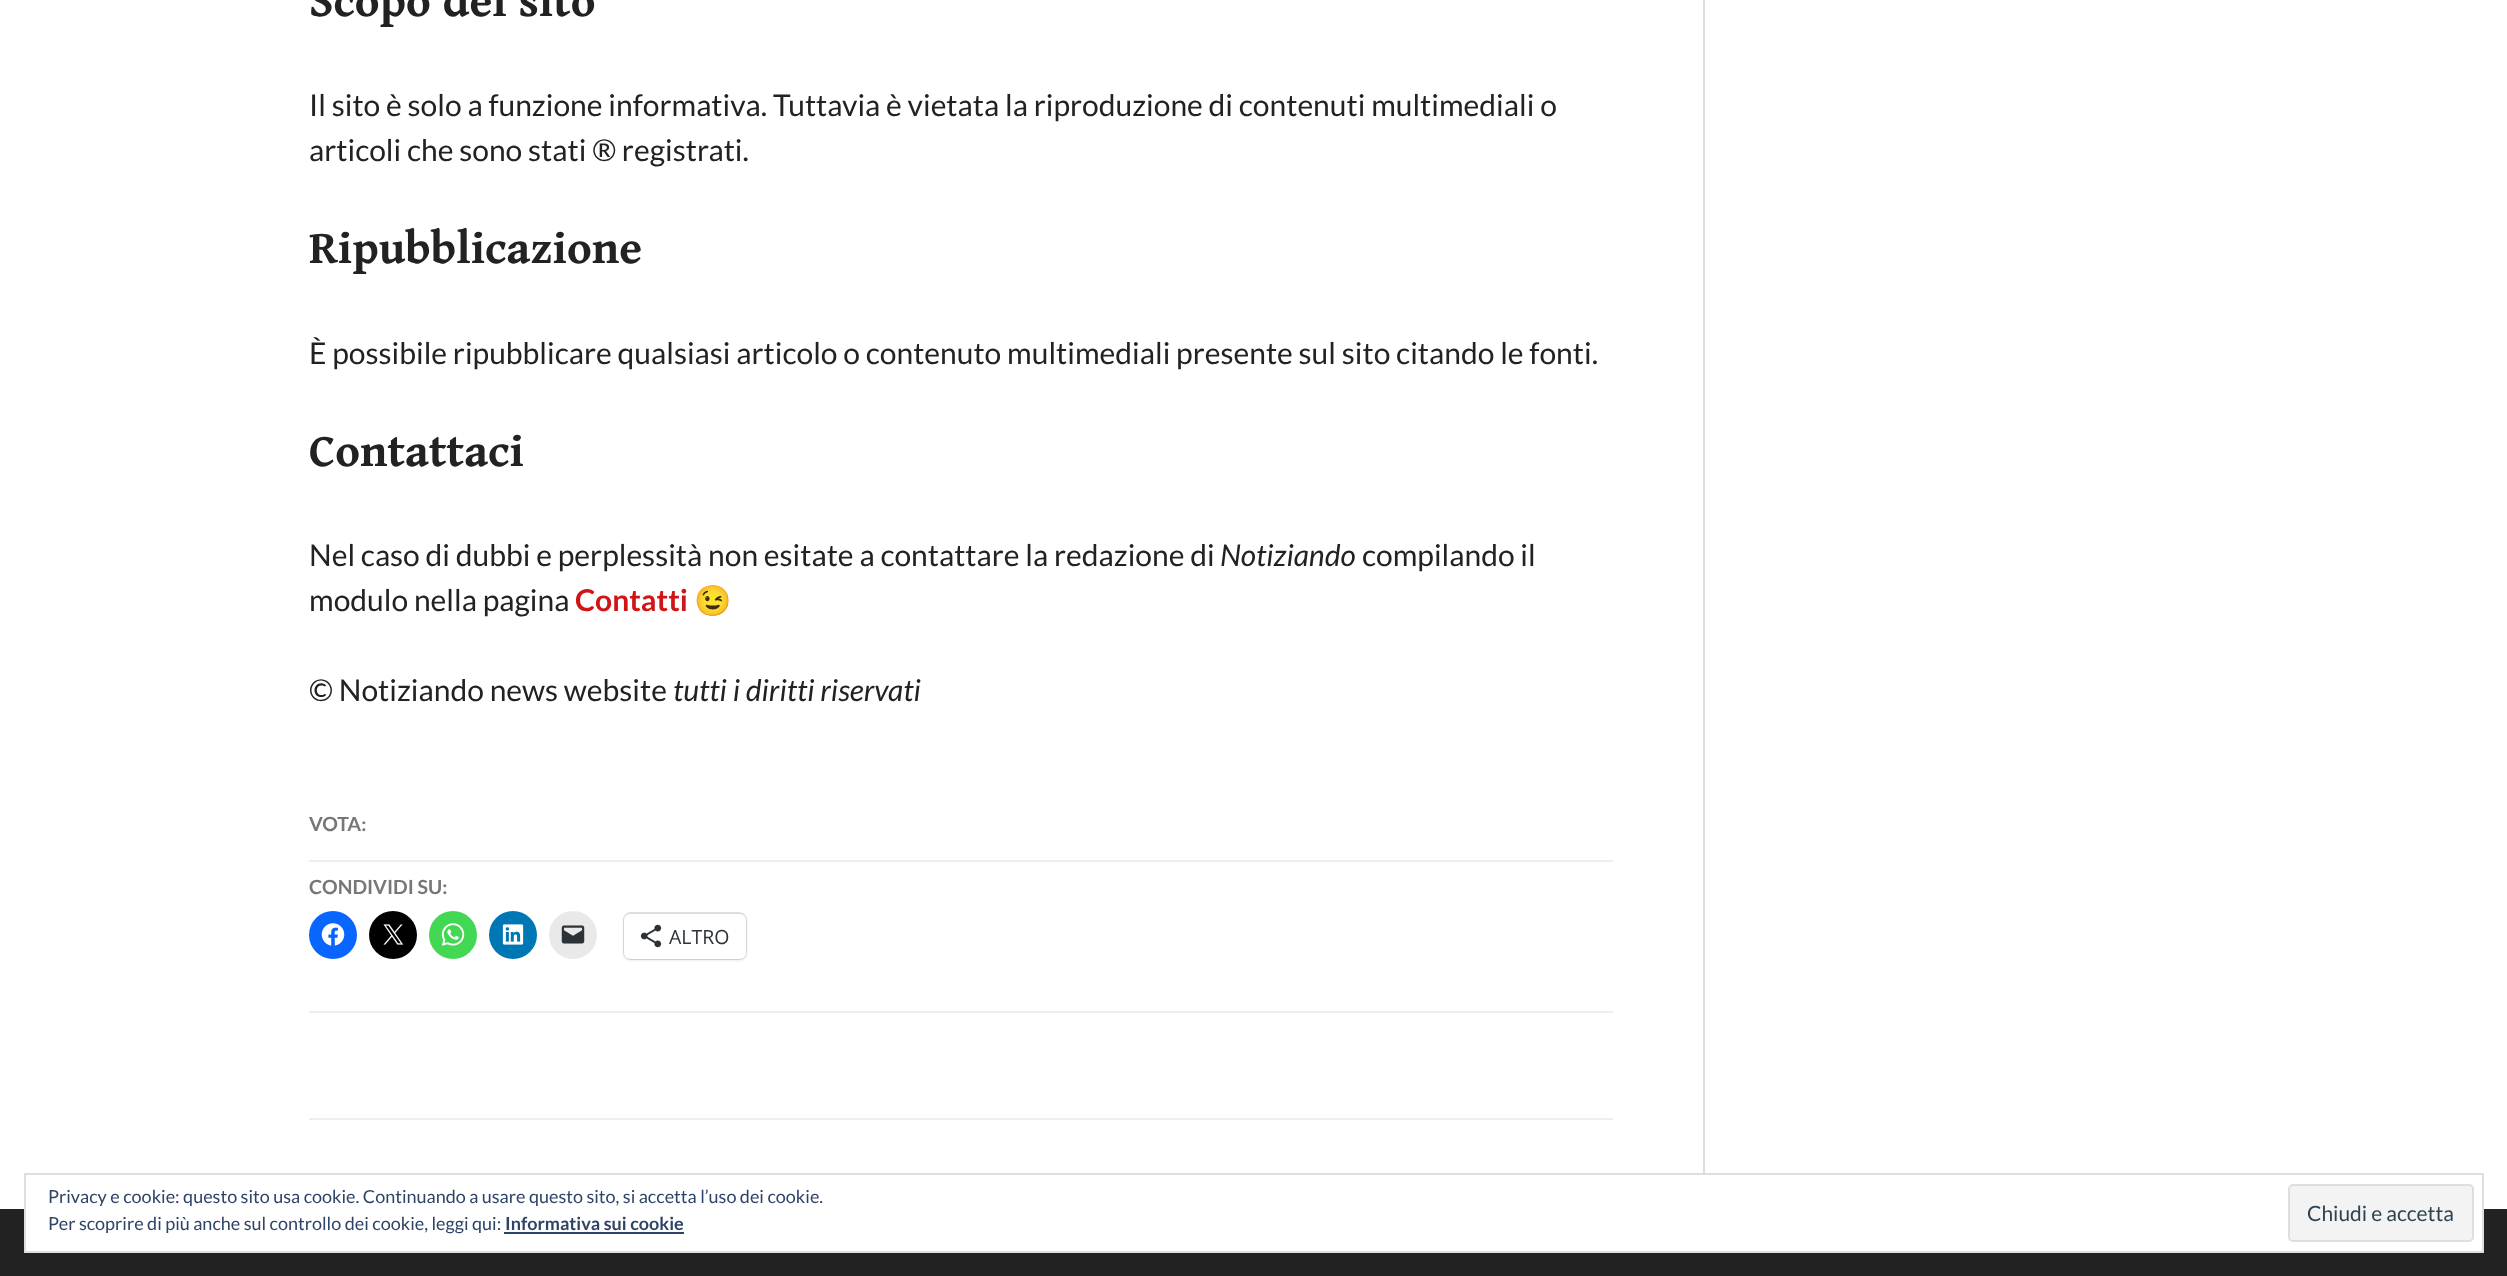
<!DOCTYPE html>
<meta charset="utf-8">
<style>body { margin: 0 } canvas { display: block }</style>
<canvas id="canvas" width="2507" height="1276"></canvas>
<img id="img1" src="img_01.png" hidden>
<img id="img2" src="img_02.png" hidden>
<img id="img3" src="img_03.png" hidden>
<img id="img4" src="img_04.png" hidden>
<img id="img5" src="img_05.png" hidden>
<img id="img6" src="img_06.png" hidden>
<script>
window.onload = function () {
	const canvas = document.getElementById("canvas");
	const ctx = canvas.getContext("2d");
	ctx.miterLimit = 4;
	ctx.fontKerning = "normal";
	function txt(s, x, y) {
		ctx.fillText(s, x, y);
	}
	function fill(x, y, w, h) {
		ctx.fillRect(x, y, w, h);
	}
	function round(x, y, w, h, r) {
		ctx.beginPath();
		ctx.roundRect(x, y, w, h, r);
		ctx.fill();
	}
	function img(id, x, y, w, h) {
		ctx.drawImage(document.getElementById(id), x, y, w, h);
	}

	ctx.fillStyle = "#FFFFFF";
	fill(0, 0, 2507, 1276);
	ctx.fillStyle = "#DDDDDD";
	fill(1703, 0, 2, 1173);
	ctx.fillStyle = "#EEEEEE";
	fill(309, 860, 1304, 2);
	fill(309, 1011, 1304, 2);
	ctx.fillStyle = "#0866FF";
	ctx.beginPath();
	ctx.arc(333, 935, 24, 0, Math.PI * 2);
	ctx.fill();
	img("img1", 321, 923, 24, 23);
	ctx.fillStyle = "#000000";
	ctx.beginPath();
	ctx.arc(393, 935, 24, 0, Math.PI * 2);
	ctx.fill();
	img("img2", 383, 924, 21, 21);
	ctx.fillStyle = "#43D854";
	ctx.beginPath();
	ctx.arc(453, 935, 24, 0, Math.PI * 2);
	ctx.fill();
	img("img3", 441, 923, 24, 23);
	ctx.fillStyle = "#0077B5";
	ctx.beginPath();
	ctx.arc(513, 935, 24, 0, Math.PI * 2);
	ctx.fill();
	img("img4", 502, 924, 22, 21);
	ctx.fillStyle = "#E9E9E9";
	ctx.beginPath();
	ctx.arc(573, 935, 24, 0, Math.PI * 2);
	ctx.fill();
	img("img5", 561, 925, 24, 19);
	ctx.beginPath();
	ctx.roundRect(624, 913, 122, 46, 7);
	ctx.strokeStyle = "#E0E0E0";
	ctx.lineWidth = 2;
	ctx.stroke();
	ctx.fillStyle = "rgba(0, 0, 0, 0.12)";
	ctx.filter = "blur(1.5px)";
	ctx.beginPath();
	ctx.roundRect(624, 915, 122, 45, 6);
	ctx.fill();
	ctx.filter = "none";
	ctx.fillStyle = "#FFFFFF";
	round(624, 914, 122, 45, 6);
	img("img6", 640, 924, 22, 24);
	ctx.fillStyle = "#EEEEEE";
	fill(309, 1118, 1304, 2);
	ctx.fillStyle = "#222222";
	fill(0, 1209, 2507, 67);
	ctx.fillStyle = "#FFFFFF";
	fill(26, 1209, 2456, 42);
	ctx.strokeStyle = "#DEDEDE";
	ctx.strokeRect(25, 1174, 2458, 78);
	ctx.fillStyle = "#F3F3F3";
	ctx.beginPath();
	ctx.roundRect(2289, 1185, 184, 56, 4);
	ctx.fill();
	ctx.stroke();
	ctx.fillStyle = "#2E4467";
	fill(504, 1232, 180, 2);
	ctx.font = "bold 46.5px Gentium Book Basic";
	ctx.fillStyle = "#222222";
	txt("Scopo del sito", 309, 16);
	ctx.font = "30px Lato";
	txt("Il sito è solo a funzione informativa. Tuttavia è vietata la riproduzione di contenuti multimediali o", 309, 116);
	txt("articoli che sono stati ® registrati.", 309, 161);
	ctx.font = "bold 46.5px Gentium Book Basic";
	txt("Ripubblicazione", 309, 263);
	ctx.font = "30px Lato";
	txt("È possibile ripubblicare qualsiasi articolo o contenuto multimediali presente sul sito citando le fonti.", 309, 364);
	ctx.font = "bold 46.5px Gentium Book Basic";
	txt("Contattaci", 309, 466);
	ctx.font = "30px Lato";
	txt("Nel caso di dubbi e perplessità non esitate a contattare la redazione di", 309, 566);
	ctx.font = "italic 30px Lato";
	txt("Notiziando", 1220, 566);
	ctx.font = "30px Lato";
	txt("compilando il", 1362, 566);
	txt("modulo nella pagina", 309, 611);
	ctx.font = "bold 30px Lato";
	ctx.fillStyle = "#D11415";
	txt("Contatti", 575, 611);
	ctx.font = "30px Noto Color Emoji";
	ctx.fillStyle = "#222222";
	txt("😉", 694, 611);
	ctx.font = "30px Lato";
	txt("© Notiziando news website", 309, 701);
	ctx.font = "italic 30px Lato";
	txt("tutti i diritti riservati", 673, 701);
	ctx.font = "bold 19.5px Lato";
	ctx.fillStyle = "#777777";
	txt("VOTA:", 309, 831);
	txt("CONDIVIDI SU:", 309, 894);
	ctx.font = "19.5px Open Sans";
	ctx.fillStyle = "#2C3338";
	txt("ALTRO", 669, 944);
	ctx.font = "18px Lato";
	ctx.fillStyle = "#2E4467";
	txt("Privacy e cookie: questo sito usa cookie. Continuando a usare questo sito, si accetta l’uso dei cookie.", 48, 1203);
	ctx.font = "21px Lato";
	ctx.fillStyle = "#2E4453";
	txt("Chiudi e accetta", 2307, 1221);
	ctx.font = "18px Lato";
	ctx.fillStyle = "#2E4467";
	txt("Per scoprire di più anche sul controllo dei cookie, leggi qui:", 48, 1230);
	ctx.font = "bold 18px Lato";
	txt("Informativa sui cookie", 505, 1230);
};
</script>
